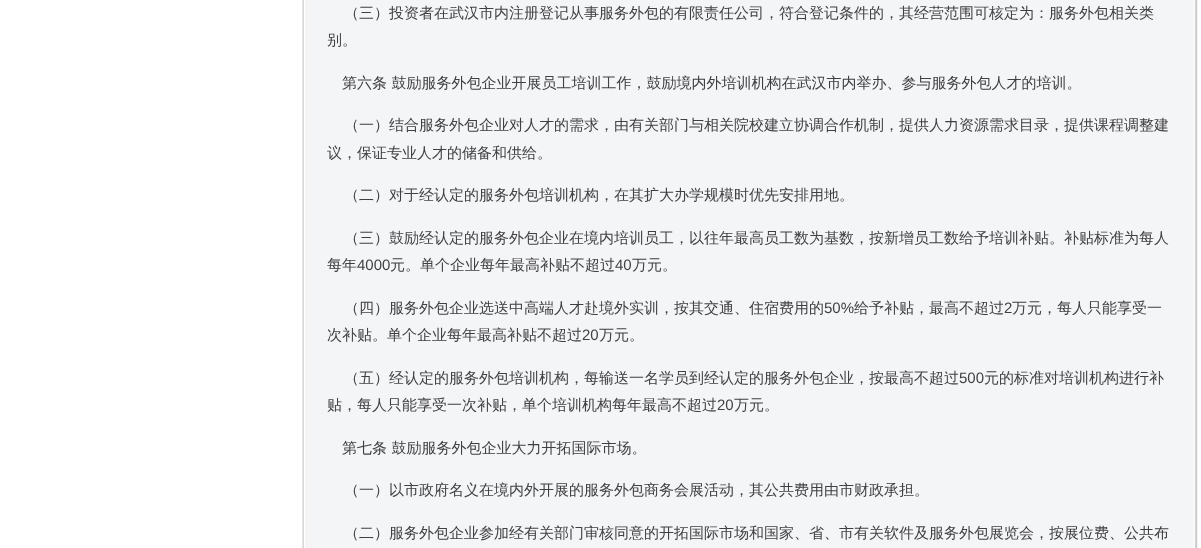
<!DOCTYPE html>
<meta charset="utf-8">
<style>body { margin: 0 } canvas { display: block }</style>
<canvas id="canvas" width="1201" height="548"></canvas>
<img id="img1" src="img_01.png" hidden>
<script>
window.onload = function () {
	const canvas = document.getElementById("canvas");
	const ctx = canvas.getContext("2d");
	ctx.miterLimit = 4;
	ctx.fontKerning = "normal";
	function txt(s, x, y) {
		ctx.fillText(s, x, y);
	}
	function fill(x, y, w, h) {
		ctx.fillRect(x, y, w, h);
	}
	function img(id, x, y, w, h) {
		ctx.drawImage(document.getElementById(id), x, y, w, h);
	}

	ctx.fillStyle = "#FFFFFF";
	fill(0, 0, 1201, 548);
	img("img1", 302, 0, 896, 548);
	ctx.font = "500 15px WenQuanYi Zen Hei";
	ctx.fillStyle = "#404042";
	txt("（三）投资者在武汉市内注册登记从事服务外包的有限责任公司，符合登记条件的，其经营范围可核定为：服务外包相关类", 344, 18);
	txt("别。", 327, 45);
	txt("第六条 鼓励服务外包企业开展员工培训工作，鼓励境内外培训机构在武汉市内举办、参与服务外包人才的培训。", 342, 88);
	txt("（一）结合服务外包企业对人才的需求，由有关部门与相关院校建立协调合作机制，提供人力资源需求目录，提供课程调整建", 344, 130);
	txt("议，保证专业人才的储备和供给。", 327, 158);
	txt("（二）对于经认定的服务外包培训机构，在其扩大办学规模时优先安排用地。", 344, 200);
	txt("（三）鼓励经认定的服务外包企业在境内培训员工，以往年最高员工数为基数，按新增员工数给予培训补贴。补贴标准为每人", 344, 243);
	txt("每年", 327, 270);
	ctx.font = "15px Liberation Sans";
	txt("4000", 357, 270);
	ctx.font = "500 15px WenQuanYi Zen Hei";
	txt("元。单个企业每年最高补贴不超过", 390, 270);
	ctx.font = "15px Liberation Sans";
	txt("40", 615, 270);
	ctx.font = "500 15px WenQuanYi Zen Hei";
	txt("万元。", 632, 270);
	txt("（四）服务外包企业选送中高端人才赴境外实训，按其交通、住宿费用的", 344, 313);
	ctx.font = "15px Liberation Sans";
	txt("50%", 824, 313);
	ctx.font = "500 15px WenQuanYi Zen Hei";
	txt("给予补贴，最高不超过", 854, 313);
	ctx.font = "15px Liberation Sans";
	txt("2", 1004, 313);
	ctx.font = "500 15px WenQuanYi Zen Hei";
	txt("万元，每人只能享受一", 1012, 313);
	txt("次补贴。单个企业每年最高补贴不超过", 327, 340);
	ctx.font = "15px Liberation Sans";
	txt("20", 582, 340);
	ctx.font = "500 15px WenQuanYi Zen Hei";
	txt("万元。", 599, 340);
	txt("（五）经认定的服务外包培训机构，每输送一名学员到经认定的服务外包企业，按最高不超过", 344, 383);
	ctx.font = "15px Liberation Sans";
	txt("500", 959, 383);
	ctx.font = "500 15px WenQuanYi Zen Hei";
	txt("元的标准对培训机构进行补", 984, 383);
	txt("贴，每人只能享受一次补贴，单个培训机构每年最高不超过", 327, 410);
	ctx.font = "15px Liberation Sans";
	txt("20", 717, 410);
	ctx.font = "500 15px WenQuanYi Zen Hei";
	txt("万元。", 734, 410);
	txt("第七条 鼓励服务外包企业大力开拓国际市场。", 342, 453);
	txt("（一）以市政府名义在境内外开展的服务外包商务会展活动，其公共费用由市财政承担。", 344, 495);
	txt("（二）服务外包企业参加经有关部门审核同意的开拓国际市场和国家、省、市有关软件及服务外包展览会，按展位费、公共布", 344, 538);
};
</script>
